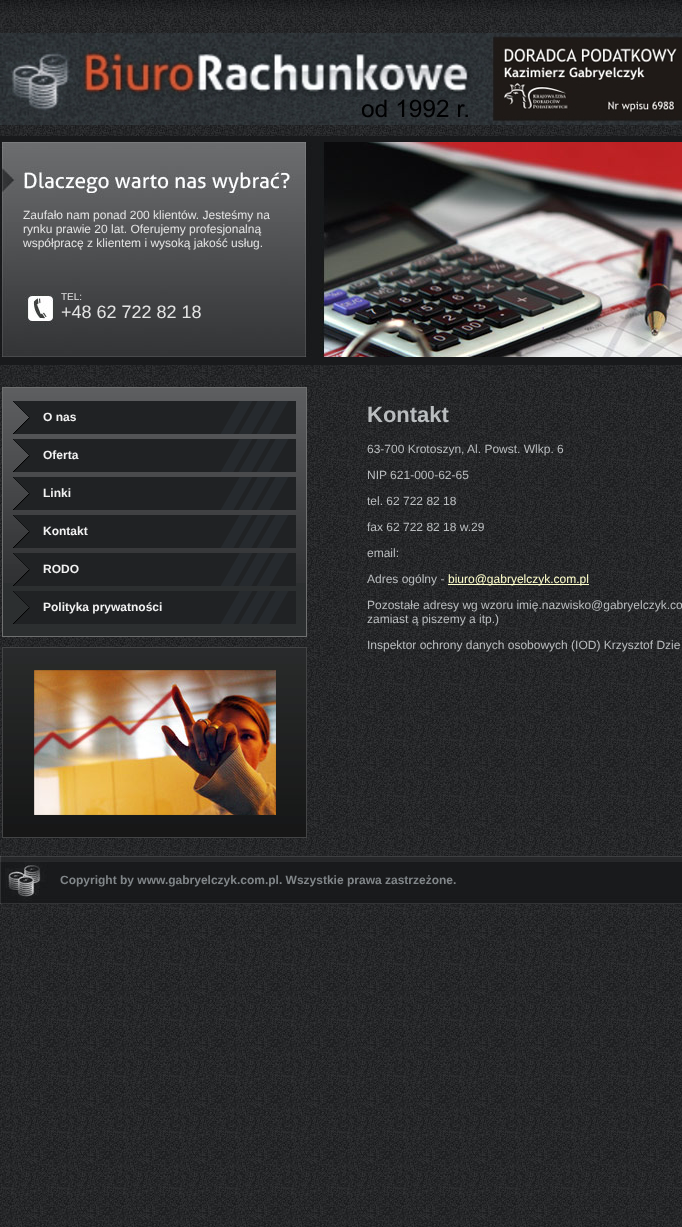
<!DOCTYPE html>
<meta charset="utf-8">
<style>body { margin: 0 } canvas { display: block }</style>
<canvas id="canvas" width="682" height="1227"></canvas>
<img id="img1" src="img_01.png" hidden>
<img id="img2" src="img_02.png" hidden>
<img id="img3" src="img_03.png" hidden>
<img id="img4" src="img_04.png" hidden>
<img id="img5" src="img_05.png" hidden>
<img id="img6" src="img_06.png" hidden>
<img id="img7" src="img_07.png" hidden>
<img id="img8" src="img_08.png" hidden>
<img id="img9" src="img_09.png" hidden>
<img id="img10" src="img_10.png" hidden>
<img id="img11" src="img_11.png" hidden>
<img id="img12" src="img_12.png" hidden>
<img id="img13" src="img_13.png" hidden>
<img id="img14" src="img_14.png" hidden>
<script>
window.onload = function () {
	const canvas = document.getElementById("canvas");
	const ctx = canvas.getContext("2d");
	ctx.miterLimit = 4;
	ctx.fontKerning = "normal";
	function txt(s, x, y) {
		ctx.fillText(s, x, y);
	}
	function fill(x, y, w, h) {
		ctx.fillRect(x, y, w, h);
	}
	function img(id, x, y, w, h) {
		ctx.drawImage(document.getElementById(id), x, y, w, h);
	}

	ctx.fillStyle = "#FFFFFF";
	fill(0, 0, 682, 1227);
	img("img1", 0, 365, 682, 862);
	img("img2", 0, 0, 682, 365);
	img("img3", 0, 33, 682, 92);
	img("img4", 0, 142, 682, 215);
	ctx.fillStyle = "#2C2F30";
	fill(3, 583, 303, 53);
	img("img5", 3, 388, 303, 195);
	ctx.strokeStyle = "#6F7070";
	ctx.strokeRect(2.5, 387.5, 304, 249);
	img("img6", 13, 401, 283, 33);
	img("img7", 13, 439, 283, 33);
	img("img8", 13, 477, 283, 33);
	img("img9", 13, 515, 283, 33);
	img("img10", 13, 553, 283, 33);
	img("img11", 13, 591, 283, 33);
	img("img12", 3, 648, 303, 189);
	ctx.strokeStyle = "#434445";
	ctx.strokeRect(2.5, 647.5, 304, 190);
	img("img13", 34, 670, 242, 145);
	ctx.fillStyle = "#FFFFCC";
	fill(448, 584, 141, 1);
	img("img14", 0, 856, 682, 48);
	ctx.font = "12px Liberation Sans";
	ctx.fillStyle = "#E3E3E3";
	txt("Zaufało nam ponad 200 klientów. Jesteśmy na", 23, 219);
	txt("rynku prawie 20 lat. Oferujemy profesjonalną", 23, 233);
	txt("współpracę z klientem i wysoką jakość usług.", 23, 247);
	ctx.font = "10px Liberation Sans";
	txt("TEL:", 61, 300);
	ctx.font = "18px Liberation Sans";
	txt("+48 62 722 82 18", 61, 318);
	ctx.font = "bold 12px Liberation Sans";
	ctx.fillStyle = "#F1F1F1";
	txt("O nas", 43, 421);
	txt("Oferta", 43, 459);
	txt("Linki", 43, 497);
	txt("Kontakt", 43, 535);
	txt("RODO", 43, 573);
	txt("Polityka prywatności", 43, 611);
	ctx.font = "bold 22px Liberation Sans";
	ctx.fillStyle = "#BABDBF";
	txt("Kontakt", 367, 422);
	ctx.font = "12px Liberation Sans";
	txt("63-700 Krotoszyn, Al. Powst. Wlkp. 6", 367, 453);
	txt("NIP 621-000-62-65", 367, 479);
	txt("tel. 62 722 82 18", 367, 505);
	txt("fax 62 722 82 18 w.29", 367, 531);
	txt("email:", 367, 557);
	txt("Adres ogólny -", 367, 583);
	ctx.fillStyle = "#FFFFCC";
	txt("biuro@gabryelczyk.com.pl", 448, 583);
	ctx.fillStyle = "#BABDBF";
	txt("Pozostałe adresy wg wzoru imię.nazwisko@gabryelczyk.co", 367, 609);
	txt("zamiast ą piszemy a itp.)", 367, 623);
	txt("Inspektor ochrony danych osobowych (IOD) Krzysztof Dzie", 367, 649);
	ctx.font = "bold 12px Liberation Sans";
	ctx.fillStyle = "#818689";
	txt("Copyright by www.gabryelczyk.com.pl. Wszystkie prawa zastrzeżone.", 60, 884);
};
</script>
